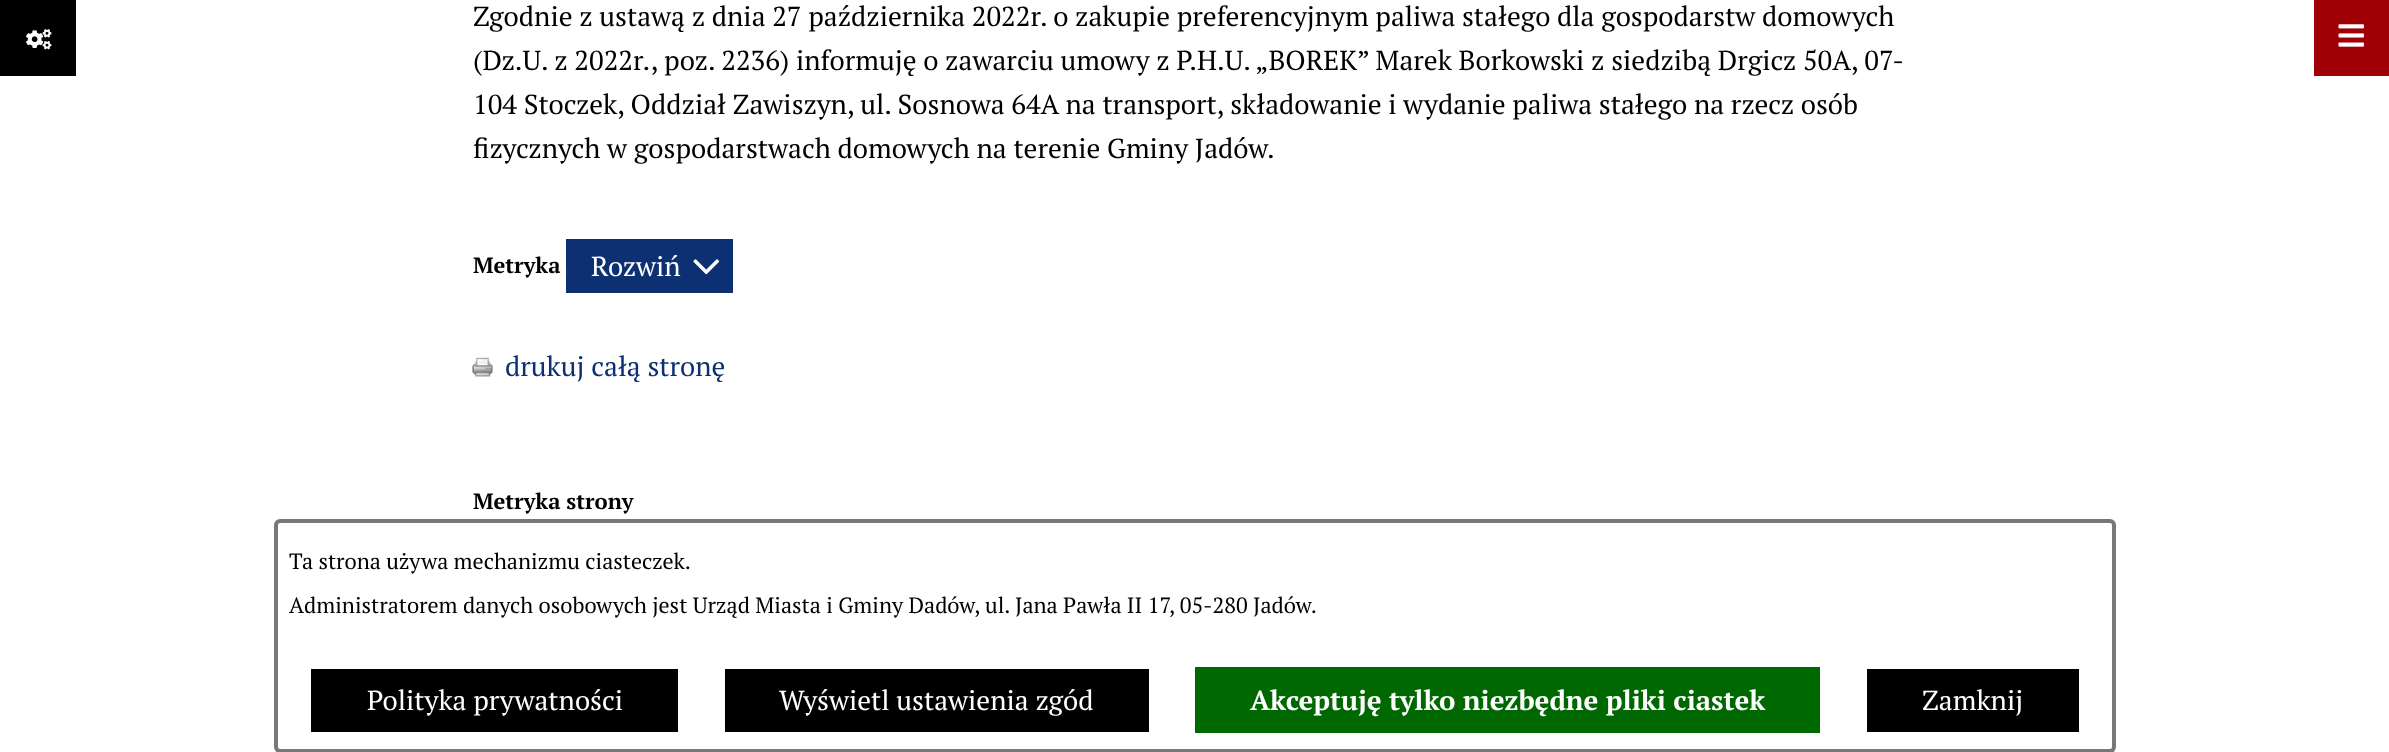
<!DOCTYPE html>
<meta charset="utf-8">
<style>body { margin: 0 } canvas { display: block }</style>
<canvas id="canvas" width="2389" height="752"></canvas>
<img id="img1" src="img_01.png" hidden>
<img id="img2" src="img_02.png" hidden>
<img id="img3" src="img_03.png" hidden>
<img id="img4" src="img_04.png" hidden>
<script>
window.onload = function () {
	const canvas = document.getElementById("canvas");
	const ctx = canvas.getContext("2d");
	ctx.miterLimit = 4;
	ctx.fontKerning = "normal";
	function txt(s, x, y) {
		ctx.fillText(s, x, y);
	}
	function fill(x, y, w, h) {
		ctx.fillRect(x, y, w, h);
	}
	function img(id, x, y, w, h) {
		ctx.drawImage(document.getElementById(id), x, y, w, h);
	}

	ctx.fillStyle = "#FFFFFF";
	fill(0, 0, 2389, 752);
	ctx.fillStyle = "#000000";
	fill(0, 0, 76, 76);
	img("img1", 26, 29, 26, 21);
	ctx.fillStyle = "#9E0005";
	fill(2314, 0, 75, 76);
	img("img2", 2338, 24, 26, 23);
	ctx.fillStyle = "#0C3072";
	fill(566, 239, 167, 54);
	img("img3", 693, 259, 27, 16);
	img("img4", 472, 357, 21, 20);
	ctx.beginPath();
	ctx.roundRect(276, 521, 1838, 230, 4);
	ctx.strokeStyle = "#787878";
	ctx.lineWidth = 4;
	ctx.stroke();
	ctx.fillStyle = "#000000";
	fill(311, 669, 367, 63);
	fill(725, 669, 424, 63);
	ctx.fillStyle = "#006800";
	fill(1195, 667, 625, 66);
	ctx.fillStyle = "#000000";
	fill(1867, 669, 212, 63);
	ctx.font = "27.5px PT Serif";
	txt("Zgodnie z ustawą z dnia 27 października 2022r. o zakupie preferencyjnym paliwa stałego dla gospodarstw domowych", 473, 26);
	txt("(Dz.U. z 2022r., poz. 2236) informuję o zawarciu umowy z P.H.U. „BOREK” Marek Borkowski z siedzibą Drgicz 50A, 07-", 473, 70);
	txt("104 Stoczek, Oddział Zawiszyn, ul. Sosnowa 64A na transport, składowanie i wydanie paliwa stałego na rzecz osób", 473, 114);
	txt("fizycznych w gospodarstwach domowych na terenie Gminy Jadów.", 473, 158);
	ctx.font = "bold 22px PT Serif";
	txt("Metryka", 473, 273);
	ctx.font = "27.5px PT Serif";
	ctx.fillStyle = "#FFFFFF";
	txt("Rozwiń", 591, 276);
	ctx.fillStyle = "#0C3072";
	txt("drukuj całą stronę", 505, 376);
	ctx.font = "bold 22px PT Serif";
	ctx.fillStyle = "#000000";
	txt("Metryka strony", 473, 509);
	ctx.font = "22px PT Serif";
	txt("Ta strona używa mechanizmu ciasteczek.", 289, 569);
	txt("Administratorem danych osobowych jest Urząd Miasta i Gminy Dadów, ul. Jana Pawła II 17, 05-280 Jadów.", 289, 613);
	ctx.font = "27.5px PT Serif";
	ctx.fillStyle = "#FFFFFF";
	txt("Polityka prywatności", 367, 710);
	txt("Wyświetl ustawienia zgód", 779, 710);
	ctx.font = "bold 27.5px PT Serif";
	txt("Akceptuję tylko niezbędne pliki ciastek", 1250, 710);
	ctx.font = "27.5px PT Serif";
	txt("Zamknij", 1922, 710);
};
</script>
